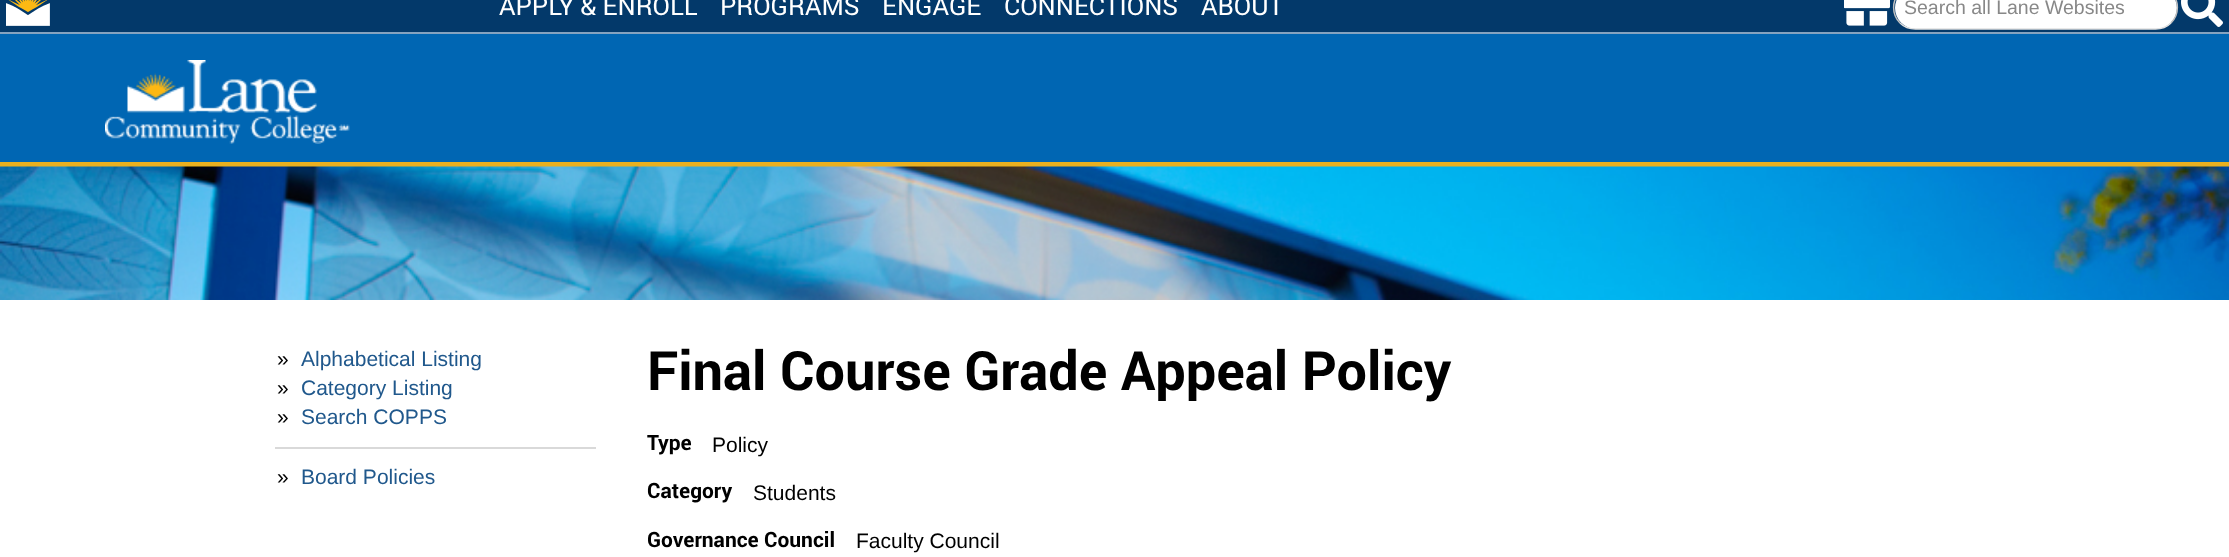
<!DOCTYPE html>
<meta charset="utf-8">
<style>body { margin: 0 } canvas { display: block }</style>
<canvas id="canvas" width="2229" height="557"></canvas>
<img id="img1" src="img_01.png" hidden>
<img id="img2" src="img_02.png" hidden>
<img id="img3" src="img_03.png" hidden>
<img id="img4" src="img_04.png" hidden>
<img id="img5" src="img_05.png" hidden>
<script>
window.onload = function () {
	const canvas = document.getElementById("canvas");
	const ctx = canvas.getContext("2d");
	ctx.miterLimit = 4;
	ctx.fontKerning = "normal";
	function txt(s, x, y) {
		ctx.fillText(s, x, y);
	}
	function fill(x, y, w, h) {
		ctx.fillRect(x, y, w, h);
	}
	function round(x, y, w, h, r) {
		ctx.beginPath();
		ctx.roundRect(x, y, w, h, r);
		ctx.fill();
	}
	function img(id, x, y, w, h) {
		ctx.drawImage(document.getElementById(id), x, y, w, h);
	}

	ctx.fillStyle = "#FFFFFF";
	fill(0, 0, 2229, 557);
	ctx.fillStyle = "#03396A";
	fill(0, 0, 2229, 32);
	ctx.fillStyle = "#85A3C0";
	fill(0, 32, 2229, 2);
	img("img1", 6, 0, 44, 26);
	img("img2", 1844, 0, 46, 26);
	ctx.fillStyle = "#FFFFFF";
	round(1895, -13, 282, 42, 21);
	ctx.beginPath();
	ctx.moveTo(2171, -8);
	ctx.bezierCurveTo(2179.5, 0.5, 2179.5, 14.5, 2171, 23);
	ctx.strokeStyle = "#C1C1C1";
	ctx.lineWidth = 1.5;
	ctx.stroke();
	ctx.beginPath();
	ctx.moveTo(2171, 23);
	ctx.bezierCurveTo(2167, 27, 2161.5, 29, 2155.5, 29);
	ctx.lineTo(1915.5, 29);
	ctx.bezierCurveTo(1909.5, 29, 1904, 27, 1900, 23);
	ctx.strokeStyle = "#E1E1E1";
	ctx.stroke();
	ctx.beginPath();
	ctx.moveTo(1900, 23);
	ctx.bezierCurveTo(1891.5, 14.5, 1891.5, 0.5, 1900, -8);
	ctx.strokeStyle = "#C1C1C1";
	ctx.stroke();
	img("img3", 2181, 0, 42, 27);
	ctx.fillStyle = "#0066B3";
	fill(0, 34, 2229, 128);
	ctx.fillStyle = "#EAB01F";
	fill(0, 162, 2229, 5);
	img("img4", 105, 60, 245, 84);
	img("img5", 0, 166, 2229, 134);
	ctx.fillStyle = "#D9D9D9";
	fill(275, 447, 321, 2);
	ctx.font = "25.5px Roboto";
	ctx.fillStyle = "#FFFFFF";
	txt("APPLY & ENROLL", 499, 15);
	txt("PROGRAMS", 720, 15);
	txt("ENGAGE", 882, 15);
	txt("CONNECTIONS", 1004, 15);
	txt("ABOUT", 1201, 15);
	ctx.font = "19.5px Liberation Sans";
	ctx.fillStyle = "#888888";
	txt("Search all Lane Websites", 1904, 14);
	ctx.font = "21px Liberation Sans";
	ctx.fillStyle = "#000000";
	txt("»", 277, 366);
	ctx.fillStyle = "#20588C";
	txt("Alphabetical Listing", 301, 366);
	ctx.fillStyle = "#000000";
	txt("»", 277, 395);
	ctx.fillStyle = "#20588C";
	txt("Category Listing", 301, 395);
	ctx.fillStyle = "#000000";
	txt("»", 277, 424);
	ctx.fillStyle = "#20588C";
	txt("Search COPPS", 301, 424);
	ctx.fillStyle = "#000000";
	txt("»", 277, 484);
	ctx.fillStyle = "#20588C";
	txt("Board Policies", 301, 484);
	ctx.font = "bold 54px Roboto";
	ctx.fillStyle = "#000000";
	txt("Final Course Grade Appeal Policy", 647, 390);
	ctx.font = "bold 21px Roboto";
	txt("Type", 647, 450);
	ctx.font = "21px Liberation Sans";
	txt("Policy", 712, 452);
	ctx.font = "bold 21px Roboto";
	txt("Category", 647, 498);
	ctx.font = "21px Liberation Sans";
	txt("Students", 753, 500);
	ctx.font = "bold 21px Roboto";
	txt("Governance Council", 647, 547);
	ctx.font = "21px Liberation Sans";
	txt("Faculty Council", 856, 548);
};
</script>
